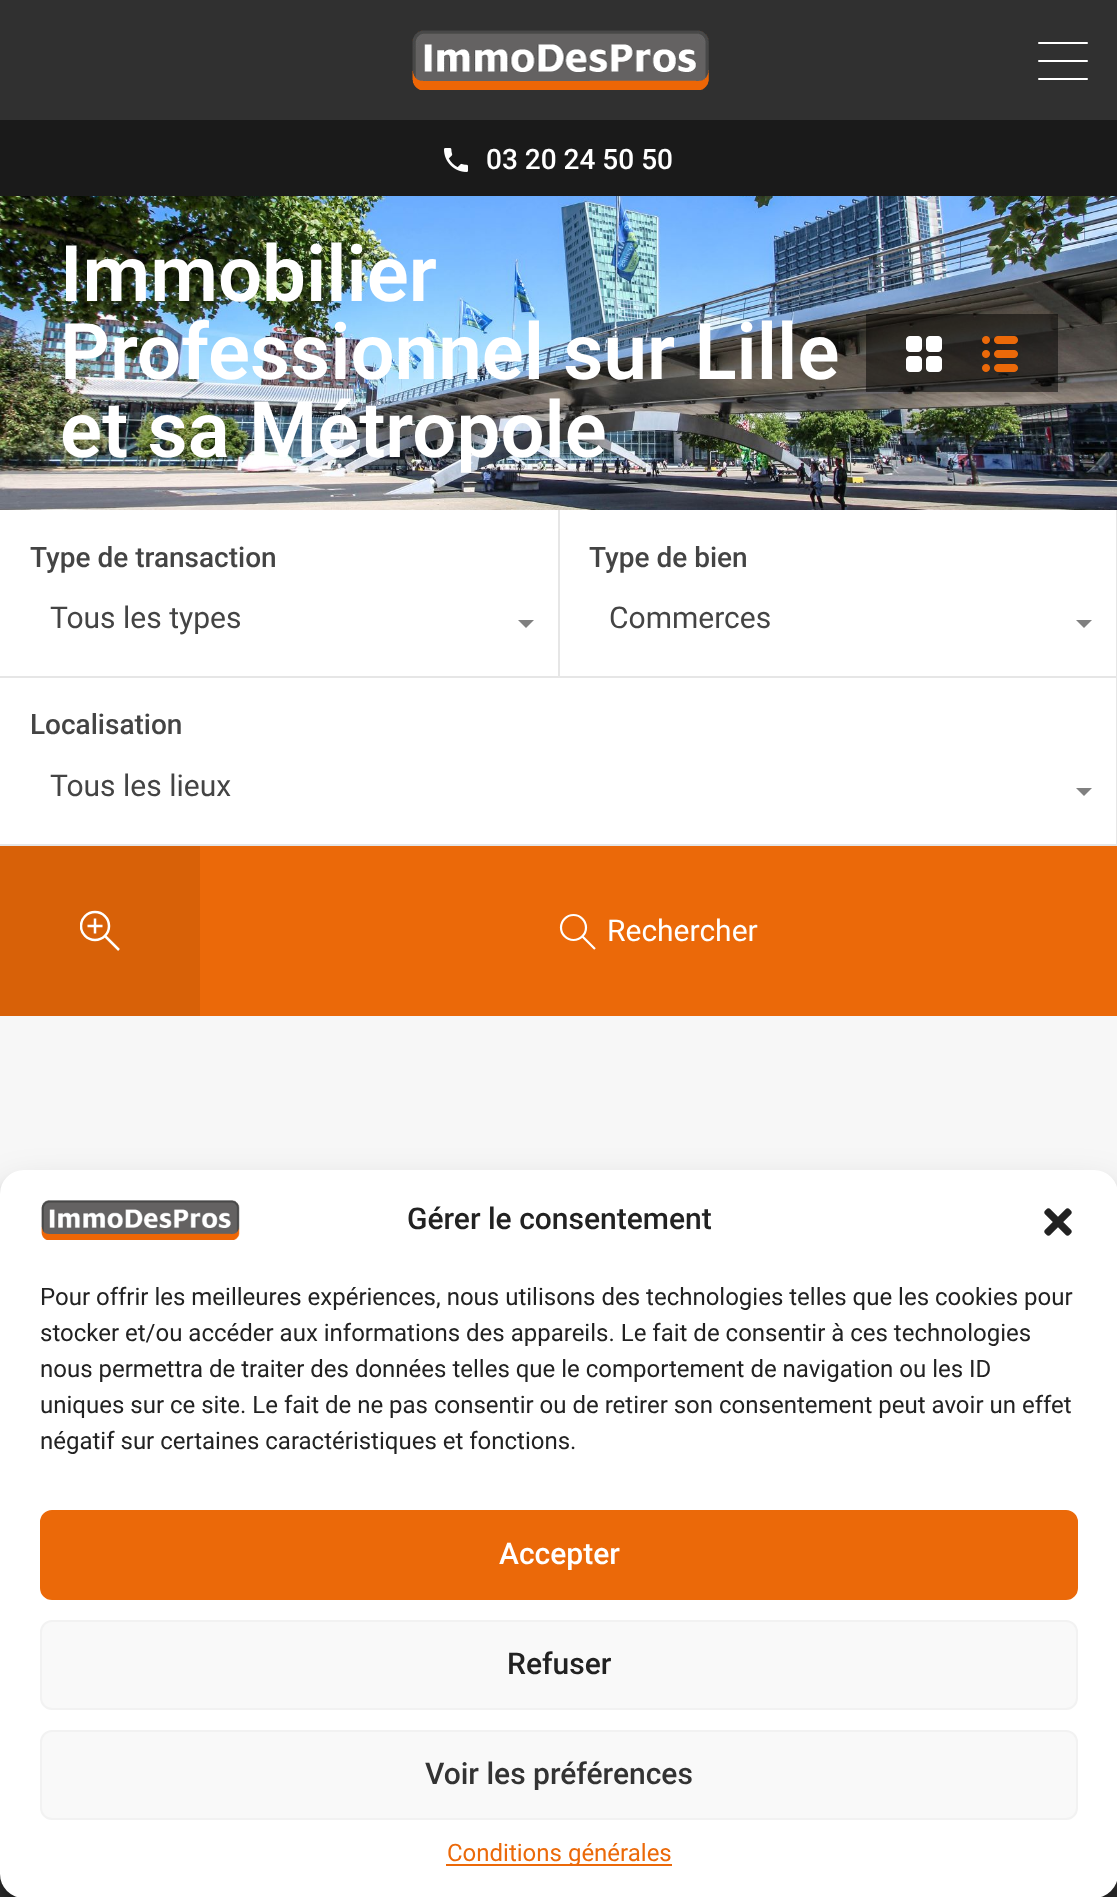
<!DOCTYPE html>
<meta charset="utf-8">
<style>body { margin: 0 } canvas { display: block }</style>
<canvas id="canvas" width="1117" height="1897"></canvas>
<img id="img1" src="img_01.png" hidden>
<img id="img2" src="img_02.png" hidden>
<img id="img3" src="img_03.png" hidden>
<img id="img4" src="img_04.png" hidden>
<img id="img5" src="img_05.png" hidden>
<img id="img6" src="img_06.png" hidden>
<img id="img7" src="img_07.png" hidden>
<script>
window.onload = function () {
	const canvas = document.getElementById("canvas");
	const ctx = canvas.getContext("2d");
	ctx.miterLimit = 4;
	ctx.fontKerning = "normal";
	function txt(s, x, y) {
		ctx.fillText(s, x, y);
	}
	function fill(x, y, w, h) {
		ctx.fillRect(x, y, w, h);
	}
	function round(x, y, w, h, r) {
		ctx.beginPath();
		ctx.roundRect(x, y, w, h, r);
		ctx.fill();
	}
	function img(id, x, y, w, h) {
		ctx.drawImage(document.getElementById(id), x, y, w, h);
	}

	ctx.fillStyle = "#F7F7F7";
	fill(0, 0, 1117, 1897);
	ctx.fillStyle = "#303030";
	fill(0, 0, 1117, 120);
	img("img1", 412, 30, 297, 60);
	ctx.fillStyle = "#FFFFFF";
	round(1038, 60, 50, 2, 1);
	round(1038, 42, 50, 2, 1);
	round(1038, 78, 50, 2, 1);
	ctx.fillStyle = "#1A1A1A";
	fill(0, 120, 1117, 76);
	img("img2", 444, 148, 24, 24);
	img("img3", 0, 196, 1117, 314);
	ctx.fillStyle = "rgba(0, 0, 0, 0.5)";
	fill(866, 314, 192, 78);
	img("img4", 906, 336, 36, 36);
	img("img5", 982, 336, 36, 36);
	ctx.fillStyle = "#FFFFFF";
	fill(0, 510, 1117, 336);
	ctx.fillStyle = "#E6E6E6";
	ctx.beginPath();
	ctx.moveTo(560, 510);
	ctx.lineTo(560, 678);
	ctx.lineTo(558, 676);
	ctx.lineTo(558, 510);
	ctx.closePath();
	ctx.fill();
	ctx.fillStyle = "rgba(128, 128, 128, 0.2)";
	ctx.beginPath();
	ctx.moveTo(560, 678);
	ctx.lineTo(0, 678);
	ctx.lineTo(0, 676);
	ctx.lineTo(558, 676);
	ctx.closePath();
	ctx.fill();
	ctx.fillStyle = "#808080";
	ctx.beginPath();
	ctx.moveTo(518, 620);
	ctx.lineTo(534, 620);
	ctx.lineTo(526, 628);
	ctx.closePath();
	ctx.fill();
	ctx.fillStyle = "#E6E6E6";
	ctx.beginPath();
	ctx.moveTo(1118, 510);
	ctx.lineTo(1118, 678);
	ctx.lineTo(1116, 676);
	ctx.lineTo(1116, 510);
	ctx.closePath();
	ctx.fill();
	ctx.fillStyle = "rgba(128, 128, 128, 0.2)";
	ctx.beginPath();
	ctx.moveTo(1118, 678);
	ctx.lineTo(560, 678);
	ctx.lineTo(560, 676);
	ctx.lineTo(1116, 676);
	ctx.closePath();
	ctx.fill();
	ctx.fillStyle = "#808080";
	ctx.beginPath();
	ctx.moveTo(1076, 620);
	ctx.lineTo(1092, 620);
	ctx.lineTo(1084, 628);
	ctx.closePath();
	ctx.fill();
	ctx.fillStyle = "#E6E6E6";
	ctx.beginPath();
	ctx.moveTo(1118, 678);
	ctx.lineTo(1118, 846);
	ctx.lineTo(1116, 844);
	ctx.lineTo(1116, 678);
	ctx.closePath();
	ctx.fill();
	ctx.fillStyle = "rgba(128, 128, 128, 0.2)";
	ctx.beginPath();
	ctx.moveTo(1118, 846);
	ctx.lineTo(0, 846);
	ctx.lineTo(0, 844);
	ctx.lineTo(1116, 844);
	ctx.closePath();
	ctx.fill();
	ctx.fillStyle = "#808080";
	ctx.beginPath();
	ctx.moveTo(1076, 788);
	ctx.lineTo(1092, 788);
	ctx.lineTo(1084, 796);
	ctx.closePath();
	ctx.fill();
	ctx.fillStyle = "#D86108";
	fill(0, 846, 200, 170);
	ctx.save();
	ctx.beginPath();
	ctx.rect(80, 908, 40, 46);
	ctx.clip();
	ctx.beginPath();
	ctx.arc(95, 926, 14, 0, Math.PI * 2);
	ctx.strokeStyle = "#FFFFFF";
	ctx.lineWidth = 2.5;
	ctx.stroke();
	ctx.restore();
	ctx.beginPath();
	ctx.moveTo(105, 936);
	ctx.lineTo(119, 950);
	ctx.moveTo(95, 918.5);
	ctx.lineTo(95, 933.5);
	ctx.moveTo(102.5, 926);
	ctx.lineTo(87.5, 926);
	ctx.strokeStyle = "#FFFFFF";
	ctx.lineWidth = 2.5;
	ctx.lineJoin = "round";
	ctx.stroke();
	ctx.fillStyle = "#EB6909";
	fill(200, 846, 917, 170);
	ctx.beginPath();
	ctx.arc(573.5, 927.5, 12.5, 0, Math.PI * 2);
	ctx.lineWidth = 2.2;
	ctx.stroke();
	ctx.beginPath();
	ctx.moveTo(582.5, 936.5);
	ctx.lineTo(595, 949);
	ctx.stroke();
	ctx.fillStyle = "#303030";
	fill(0, 1874, 1117, 23);
	ctx.fillStyle = "rgba(0, 0, 0, 0.23)";
	ctx.filter = "blur(6px)";
	ctx.beginPath();
	ctx.roundRect(0, 1182, 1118, 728, 24);
	ctx.fill();
	ctx.filter = "none";
	ctx.fillStyle = "rgba(0, 0, 0, 0.19)";
	ctx.filter = "blur(20px)";
	ctx.beginPath();
	ctx.roundRect(0, 1190, 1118, 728, 24);
	ctx.fill();
	ctx.filter = "none";
	ctx.fillStyle = "#FFFFFF";
	round(0, 1170, 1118, 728, 24);
	img("img6", 41, 1200, 199, 40);
	img("img7", 1044, 1208, 28, 28);
	ctx.fillStyle = "#EB6909";
	ctx.beginPath();
	ctx.roundRect(41, 1511, 1036, 88, 11);
	ctx.fill();
	ctx.strokeStyle = "#EB6909";
	ctx.lineWidth = 2;
	ctx.lineJoin = "miter";
	ctx.stroke();
	ctx.fillStyle = "#F9F9F9";
	ctx.beginPath();
	ctx.roundRect(41, 1621, 1036, 88, 11);
	ctx.fill();
	ctx.strokeStyle = "#F2F2F2";
	ctx.stroke();
	ctx.beginPath();
	ctx.roundRect(41, 1731, 1036, 88, 11);
	ctx.fill();
	ctx.stroke();
	ctx.fillStyle = "#EB6909";
	fill(446, 1864, 226, 2);
	ctx.font = "500 28px Roboto";
	ctx.fillStyle = "#FFFFFF";
	txt("03 20 24 50 50", 486, 169);
	ctx.font = "600 78px Roboto";
	txt("Immobilier", 60, 301);
	txt("Professionnel sur Lille", 60, 379);
	txt("et sa Métropole", 60, 457);
	ctx.font = "500 28px Roboto";
	ctx.fillStyle = "#444444";
	txt("Type de transaction", 30, 567);
	ctx.font = "30px Roboto";
	txt("Tous les types", 50, 628);
	ctx.font = "500 28px Roboto";
	txt("Type de bien", 589, 567);
	ctx.font = "30px Roboto";
	txt("Commerces", 609, 628);
	ctx.font = "500 28px Roboto";
	txt("Localisation", 30, 734);
	ctx.font = "30px Roboto";
	txt("Tous les lieux", 50, 796);
	ctx.fillStyle = "#FFFFFF";
	txt("Rechercher", 607, 941);
	ctx.font = "500 30px Roboto";
	ctx.fillStyle = "#222222";
	txt("Gérer le consentement", 407, 1229);
	ctx.font = "24px Roboto";
	txt("Pour offrir les meilleures expériences, nous utilisons des technologies telles que les cookies pour", 40, 1305);
	txt("stocker et/ou accéder aux informations des appareils. Le fait de consentir à ces technologies", 40, 1341);
	txt("nous permettra de traiter des données telles que le comportement de navigation ou les ID", 40, 1377);
	txt("uniques sur ce site. Le fait de ne pas consentir ou de retirer son consentement peut avoir un effet", 40, 1413);
	txt("négatif sur certaines caractéristiques et fonctions.", 40, 1449);
	ctx.font = "500 30px Roboto";
	ctx.fillStyle = "#FFFFFF";
	txt("Accepter", 499, 1564);
	ctx.fillStyle = "#222222";
	txt("Refuser", 507, 1674);
	ctx.fillStyle = "#333333";
	txt("Voir les préférences", 425, 1784);
	ctx.font = "24px Roboto";
	ctx.fillStyle = "#EB6909";
	txt("Conditions générales", 447, 1861);
};
</script>
